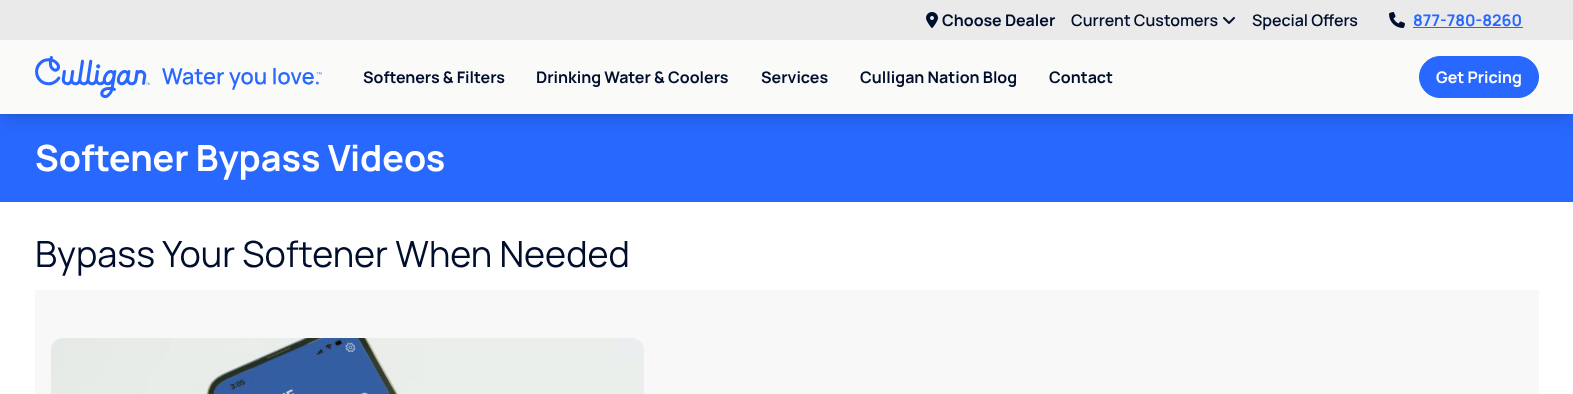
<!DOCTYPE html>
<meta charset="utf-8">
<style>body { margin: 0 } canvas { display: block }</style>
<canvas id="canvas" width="1573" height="394"></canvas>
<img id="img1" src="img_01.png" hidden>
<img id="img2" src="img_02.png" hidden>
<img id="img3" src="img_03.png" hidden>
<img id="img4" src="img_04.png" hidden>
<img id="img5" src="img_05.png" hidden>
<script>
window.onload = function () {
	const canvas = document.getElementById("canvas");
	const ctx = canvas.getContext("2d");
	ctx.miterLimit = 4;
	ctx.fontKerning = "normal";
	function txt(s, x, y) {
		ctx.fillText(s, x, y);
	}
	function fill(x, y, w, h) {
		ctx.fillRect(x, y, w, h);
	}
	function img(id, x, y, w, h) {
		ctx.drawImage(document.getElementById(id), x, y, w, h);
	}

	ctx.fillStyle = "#FFFFFF";
	fill(0, 0, 1573, 394);
	ctx.fillStyle = "#2968FE";
	fill(0, 114, 1573, 88);
	ctx.fillStyle = "rgba(0, 0, 0, 0.1)";
	ctx.filter = "blur(3px)";
	ctx.beginPath();
	ctx.rect(4, 8, 1565, 106);
	ctx.fill();
	ctx.filter = "none";
	ctx.filter = "blur(7.5px)";
	ctx.beginPath();
	ctx.rect(3, 13, 1567, 108);
	ctx.fill();
	ctx.filter = "none";
	ctx.fillStyle = "#EAEAEA";
	fill(0, 0, 1573, 40);
	img("img1", 926, 12, 12, 16);
	img("img2", 1223, 17, 12, 7);
	img("img3", 1389, 12, 16, 16);
	ctx.fillStyle = "#2968FE";
	fill(1413, 27, 110, 1);
	ctx.fillStyle = "#FAFAF9";
	fill(0, 40, 1573, 74);
	img("img4", 35, 56, 287, 42);
	ctx.fillStyle = "#2968FE";
	ctx.beginPath();
	ctx.roundRect(1419.5, 56.5, 119, 41, 20.5);
	ctx.fill();
	ctx.strokeStyle = "#2968FE";
	ctx.stroke();
	ctx.fillStyle = "#F8F8F8";
	fill(35, 290, 1504, 104);
	img("img5", 51, 338, 593, 56);
	ctx.font = "bold 16px Manrope";
	ctx.fillStyle = "#000E2E";
	txt("Choose Dealer", 942, 26);
	ctx.font = "600 16px Manrope";
	txt("Current Customers", 1071, 26);
	txt("Special Offers", 1252, 26);
	ctx.font = "bold 16px Manrope";
	ctx.fillStyle = "#2968FE";
	txt("877-780-8260", 1413, 26);
	ctx.fillStyle = "#000E2E";
	txt("Softeners & Filters", 363, 83);
	txt("Drinking Water & Coolers", 536, 83);
	txt("Services", 761, 83);
	txt("Culligan Nation Blog", 860, 83);
	txt("Contact", 1049, 83);
	ctx.fillStyle = "#FFFFFF";
	txt("Get Pricing", 1436, 83);
	ctx.font = "bold 36px Manrope";
	txt("Softener Bypass Videos", 35, 171);
	ctx.font = "36px Manrope";
	ctx.fillStyle = "#000E2E";
	txt("Bypass Your Softener When Needed", 35, 267);
};
</script>
